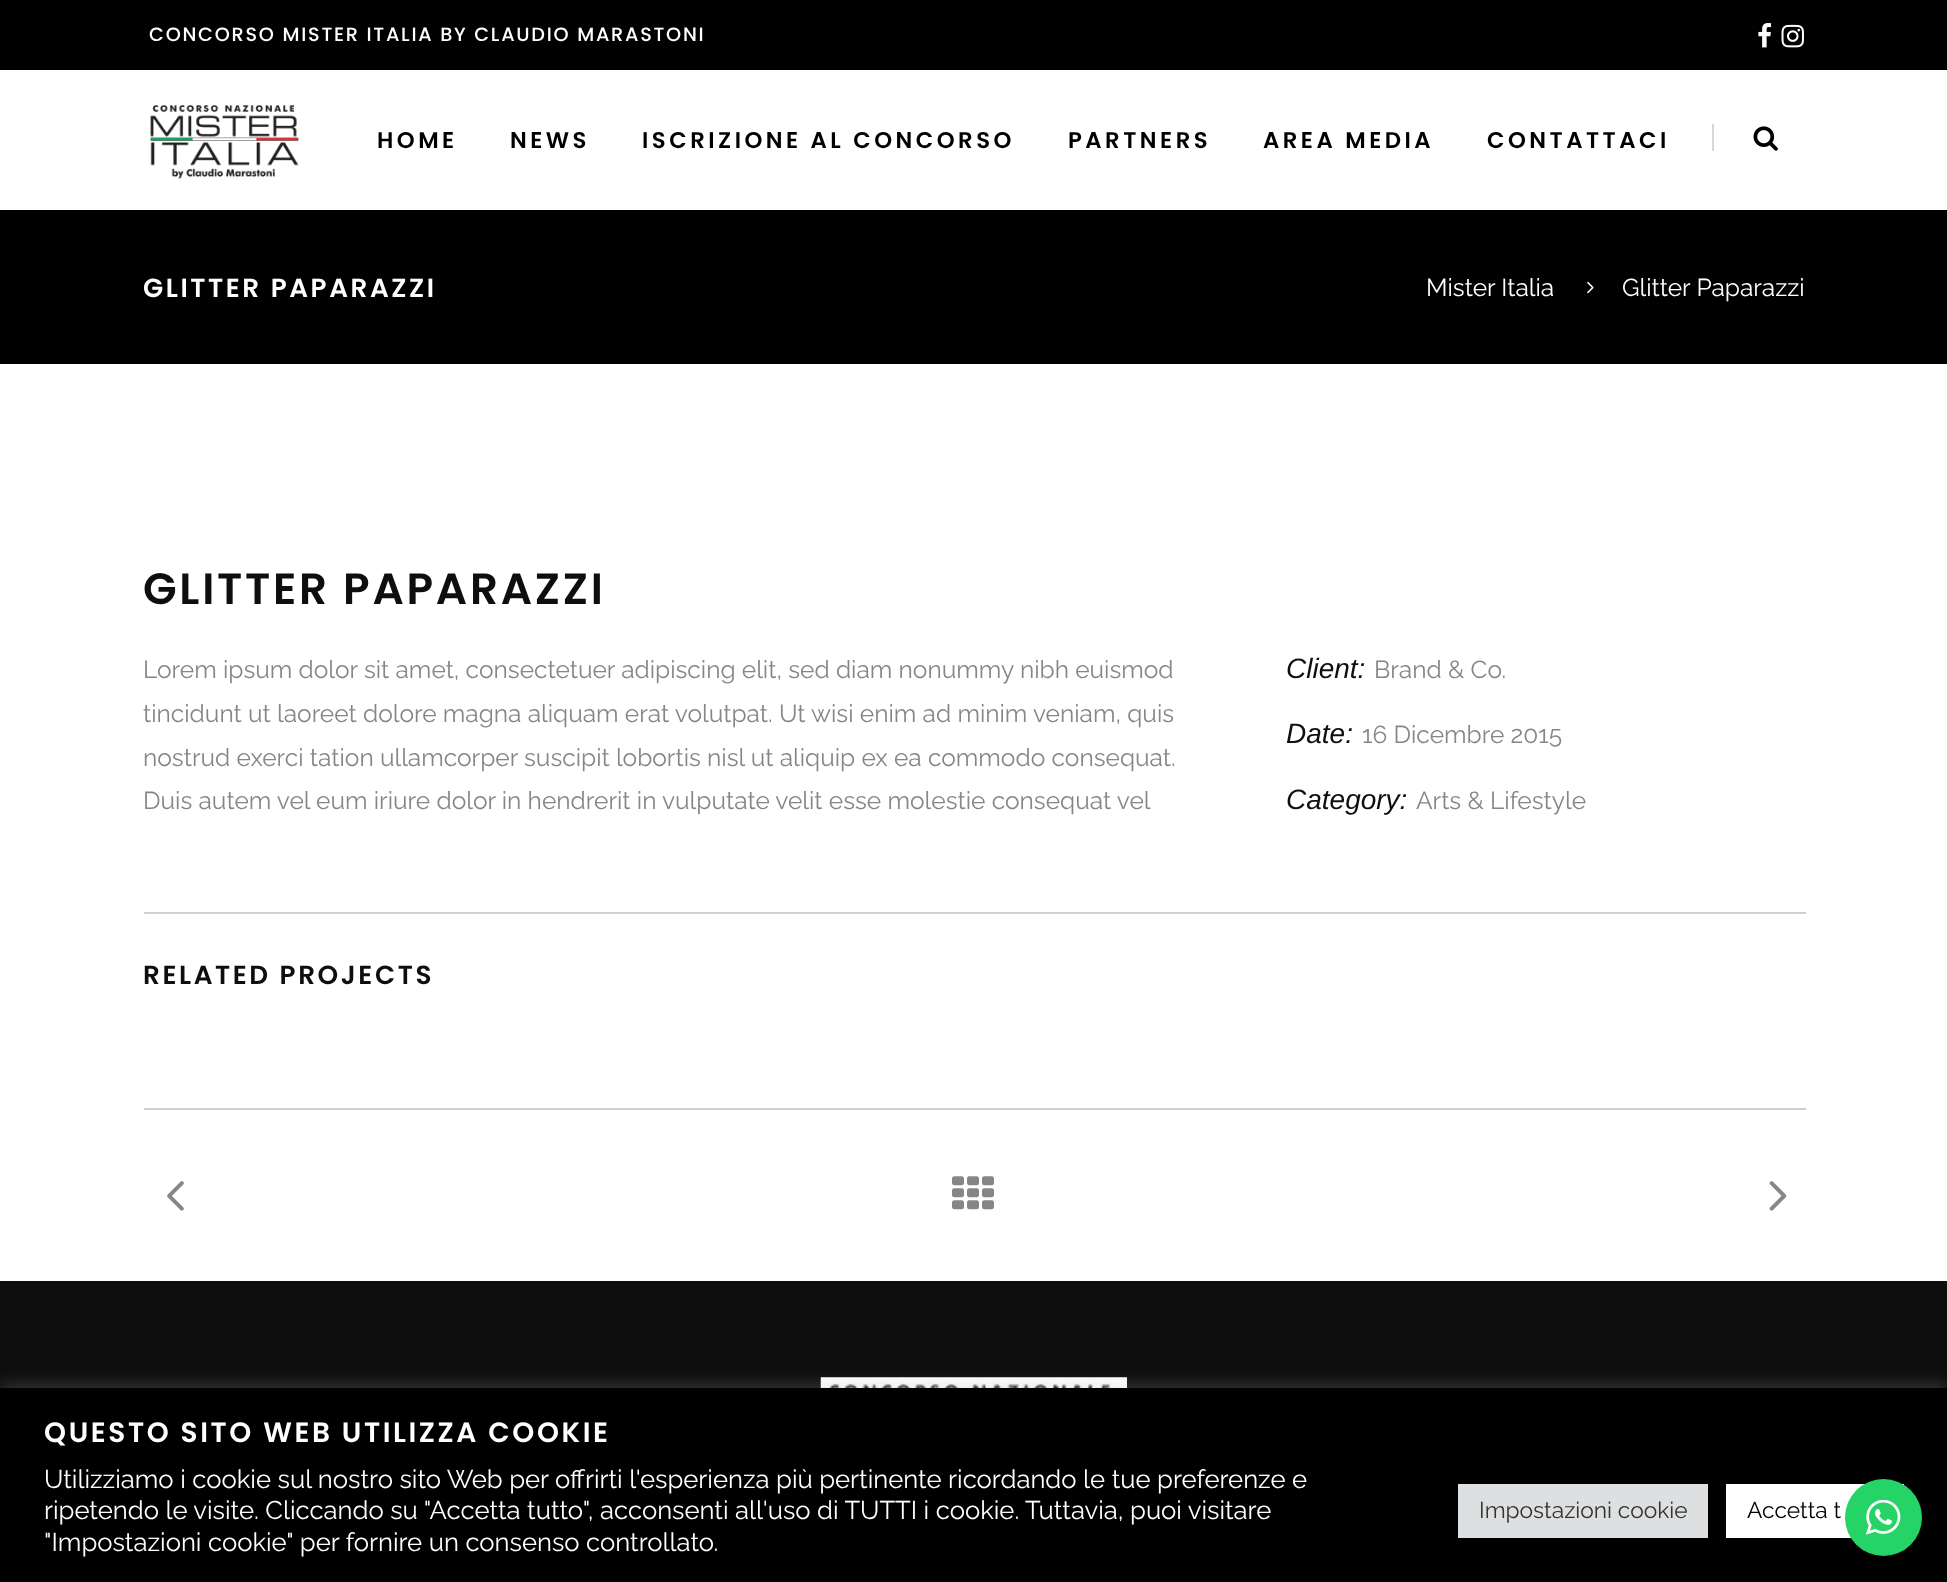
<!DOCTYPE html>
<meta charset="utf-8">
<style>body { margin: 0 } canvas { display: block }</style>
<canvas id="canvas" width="1947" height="1582"></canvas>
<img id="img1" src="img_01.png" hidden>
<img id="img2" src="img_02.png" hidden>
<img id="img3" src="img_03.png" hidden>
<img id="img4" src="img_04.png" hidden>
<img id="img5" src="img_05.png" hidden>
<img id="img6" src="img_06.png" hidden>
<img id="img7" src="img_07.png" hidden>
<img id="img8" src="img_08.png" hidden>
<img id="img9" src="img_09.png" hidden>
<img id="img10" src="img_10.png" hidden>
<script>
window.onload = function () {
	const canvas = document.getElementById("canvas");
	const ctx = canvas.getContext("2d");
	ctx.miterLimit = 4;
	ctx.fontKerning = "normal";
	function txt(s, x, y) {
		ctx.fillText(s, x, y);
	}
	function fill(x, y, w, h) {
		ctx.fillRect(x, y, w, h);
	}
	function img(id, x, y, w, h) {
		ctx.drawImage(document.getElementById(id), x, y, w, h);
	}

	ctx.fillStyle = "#FFFFFF";
	fill(0, 0, 1947, 1582);
	ctx.fillStyle = "#000000";
	fill(0, 0, 1947, 70);
	img("img1", 1758, 23, 14, 25);
	img("img2", 1781, 24, 23, 24);
	img("img3", 150, 105, 149, 74);
	ctx.fillStyle = "#D7D7D7";
	fill(1712, 124, 2, 27);
	img("img4", 1753, 126, 25, 25);
	ctx.fillStyle = "#000000";
	fill(0, 210, 1947, 154);
	img("img5", 1587, 281, 7, 13);
	ctx.fillStyle = "#CFCFCF";
	fill(144, 912, 1662, 2);
	fill(144, 1108, 1662, 2);
	img("img6", 167, 1181, 17, 30);
	img("img7", 952, 1176, 42, 34);
	img("img8", 1769, 1181, 18, 30);
	ctx.fillStyle = "#0E0E0E";
	fill(0, 1281, 1947, 107);
	img("img9", 820, 1377, 307, 11);
	ctx.fillStyle = "rgba(172, 171, 171, 0.3)";
	ctx.filter = "blur(9px)";
	ctx.beginPath();
	ctx.rect(0, 1386, 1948, 194);
	ctx.fill();
	ctx.filter = "none";
	ctx.fillStyle = "#000000";
	fill(0, 1388, 1947, 194);
	ctx.fillStyle = "#DEDFE0";
	fill(1458, 1484, 250, 54);
	ctx.fillStyle = "#FFFFFF";
	fill(1726, 1484, 178, 54);
	ctx.fillStyle = "#25D366";
	ctx.beginPath();
	ctx.arc(1883.5, 1517.5, 38.5, 0, Math.PI * 2);
	ctx.fill();
	img("img10", 1866, 1500, 35, 35);
	ctx.letterSpacing = "1.75px";
	ctx.font = "500 19.25px Poppins";
	ctx.fillStyle = "#FFFFFF";
	txt("CONCORSO MISTER ITALIA BY CLAUDIO MARASTONI", 149, 41);
	ctx.letterSpacing = "3.5px";
	ctx.font = "600 22.75px Poppins";
	ctx.fillStyle = "#000000";
	txt("HOME", 377, 148);
	txt("NEWS", 510, 148);
	txt("ISCRIZIONE AL CONCORSO", 642, 148);
	txt("PARTNERS", 1068, 148);
	txt("AREA MEDIA", 1263, 148);
	txt("CONTATTACI", 1487, 148);
	ctx.letterSpacing = "2.6px";
	ctx.font = "600 26.25px Poppins";
	ctx.fillStyle = "#FFFFFF";
	txt("GLITTER PAPARAZZI", 143, 297);
	ctx.letterSpacing = "0px";
	ctx.font = "24.5px Raleway";
	txt("Mister Italia", 1426, 296);
	txt("Glitter Paparazzi", 1622, 296);
	ctx.letterSpacing = "2.75px";
	ctx.font = "600 43.75px Poppins";
	ctx.fillStyle = "#0E0E0E";
	txt("GLITTER PAPARAZZI", 143, 604);
	ctx.letterSpacing = "0px";
	ctx.font = "24.5px Raleway";
	ctx.fillStyle = "#868686";
	txt("Lorem ipsum dolor sit amet, consectetuer adipiscing elit, sed diam nonummy nibh euismod", 143, 678);
	txt("tincidunt ut laoreet dolore magna aliquam erat volutpat. Ut wisi enim ad minim veniam, quis", 143, 722);
	txt("nostrud exerci tation ullamcorper suscipit lobortis nisl ut aliquip ex ea commodo consequat.", 143, 766);
	txt("Duis autem vel eum iriure dolor in hendrerit in vulputate velit esse molestie consequat vel", 143, 809);
	ctx.font = "italic 28px Liberation Sans";
	ctx.fillStyle = "#0E0E0E";
	txt("Client:", 1286, 678);
	ctx.font = "24.5px Raleway";
	ctx.fillStyle = "#868686";
	txt("Brand & Co.", 1374, 678);
	ctx.font = "italic 28px Liberation Sans";
	ctx.fillStyle = "#0E0E0E";
	txt("Date:", 1286, 743);
	ctx.font = "24.5px Raleway";
	ctx.fillStyle = "#868686";
	txt("16 Dicembre 2015", 1362, 743);
	ctx.font = "italic 28px Liberation Sans";
	ctx.fillStyle = "#0E0E0E";
	txt("Category:", 1286, 809);
	ctx.font = "24.5px Raleway";
	ctx.fillStyle = "#868686";
	txt("Arts & Lifestyle", 1416, 809);
	ctx.letterSpacing = "2.6px";
	ctx.font = "600 26.25px Poppins";
	ctx.fillStyle = "#0E0E0E";
	txt("RELATED PROJECTS", 143, 984);
	ctx.font = "600 28px Poppins";
	ctx.fillStyle = "#FFFFFF";
	txt("QUESTO SITO WEB UTILIZZA COOKIE", 44, 1442);
	ctx.letterSpacing = "0px";
	ctx.font = "25.65px Raleway";
	txt("Utilizziamo i cookie sul nostro sito Web per offrirti l'esperienza più pertinente ricordando le tue preferenze e", 44, 1488);
	txt("ripetendo le visite. Cliccando su \"Accetta tutto\", acconsenti all'uso di TUTTI i cookie. Tuttavia, puoi visitare", 44, 1519);
	txt("\"Impostazioni cookie\" per fornire un consenso controllato.", 44, 1551);
	ctx.font = "22.75px Raleway";
	ctx.fillStyle = "#333333";
	txt("Impostazioni cookie", 1479, 1518);
	ctx.fillStyle = "#000000";
	txt("Accetta t", 1747, 1518);
};
</script>
